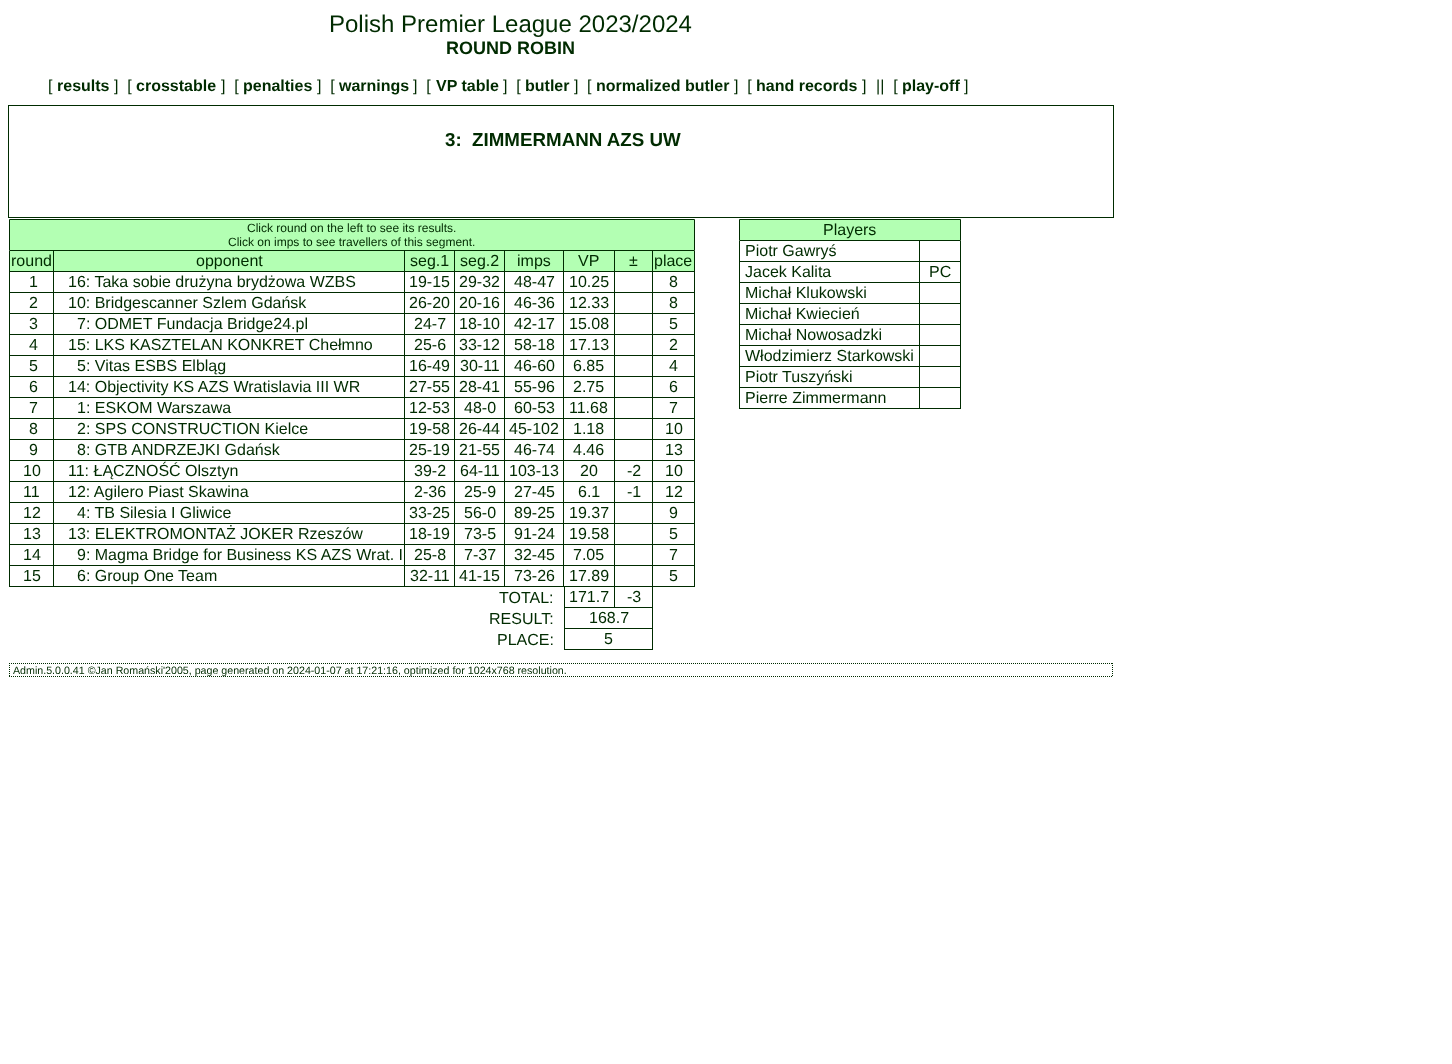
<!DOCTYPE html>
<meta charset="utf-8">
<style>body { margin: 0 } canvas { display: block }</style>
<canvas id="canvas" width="1452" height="1064"></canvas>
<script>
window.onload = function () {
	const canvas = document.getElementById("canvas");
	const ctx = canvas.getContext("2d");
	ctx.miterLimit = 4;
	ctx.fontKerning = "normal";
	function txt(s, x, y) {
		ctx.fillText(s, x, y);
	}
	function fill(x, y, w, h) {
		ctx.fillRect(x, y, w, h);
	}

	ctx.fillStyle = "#FFFFFF";
	fill(0, 0, 1452, 1064);
	ctx.strokeStyle = "#002B00";
	ctx.strokeRect(8.5, 105.5, 1105, 112);
	ctx.fillStyle = "#B3FFB3";
	ctx.beginPath();
	ctx.rect(9.5, 219.5, 685, 31);
	ctx.fill();
	ctx.stroke();
	fill(10, 251, 43, 20);
	ctx.fillStyle = "#002B00";
	fill(53, 251, 1, 336);
	fill(9, 271, 45, 1);
	fill(9, 251, 1, 21);
	ctx.fillStyle = "#B3FFB3";
	fill(54, 251, 350, 20);
	ctx.fillStyle = "#002B00";
	fill(404, 251, 1, 336);
	fill(54, 271, 351, 1);
	ctx.fillStyle = "#B3FFB3";
	fill(405, 251, 49, 20);
	ctx.fillStyle = "#002B00";
	fill(454, 251, 1, 336);
	fill(405, 271, 50, 1);
	ctx.fillStyle = "#B3FFB3";
	fill(455, 251, 49, 20);
	ctx.fillStyle = "#002B00";
	fill(504, 251, 1, 336);
	fill(455, 271, 50, 1);
	ctx.fillStyle = "#B3FFB3";
	fill(505, 251, 58, 20);
	ctx.fillStyle = "#002B00";
	fill(563, 251, 1, 336);
	fill(505, 271, 59, 1);
	ctx.fillStyle = "#B3FFB3";
	fill(564, 251, 50, 20);
	ctx.fillStyle = "#002B00";
	fill(614, 251, 1, 357);
	fill(564, 271, 51, 1);
	ctx.fillStyle = "#B3FFB3";
	fill(615, 251, 37, 20);
	ctx.fillStyle = "#002B00";
	fill(652, 251, 1, 399);
	fill(615, 271, 38, 1);
	ctx.fillStyle = "#B3FFB3";
	fill(653, 251, 41, 20);
	ctx.fillStyle = "#002B00";
	fill(694, 251, 1, 336);
	fill(653, 271, 42, 1);
	fill(9, 292, 686, 1);
	fill(9, 272, 1, 21);
	fill(9, 313, 686, 1);
	fill(9, 293, 1, 21);
	fill(9, 334, 686, 1);
	fill(9, 314, 1, 21);
	fill(9, 355, 686, 1);
	fill(9, 335, 1, 21);
	fill(9, 376, 686, 1);
	fill(9, 356, 1, 21);
	fill(9, 397, 686, 1);
	fill(9, 377, 1, 21);
	fill(9, 418, 686, 1);
	fill(9, 398, 1, 21);
	fill(9, 439, 686, 1);
	fill(9, 419, 1, 21);
	fill(9, 460, 686, 1);
	fill(9, 440, 1, 21);
	fill(9, 481, 686, 1);
	fill(9, 461, 1, 21);
	fill(9, 502, 686, 1);
	fill(9, 482, 1, 21);
	fill(9, 523, 686, 1);
	fill(9, 503, 1, 21);
	fill(9, 544, 686, 1);
	fill(9, 524, 1, 21);
	fill(9, 565, 686, 1);
	fill(9, 545, 1, 21);
	fill(9, 586, 686, 1);
	fill(9, 566, 1, 21);
	fill(564, 607, 89, 1);
	fill(564, 587, 1, 21);
	fill(564, 628, 89, 1);
	fill(564, 608, 1, 21);
	fill(564, 649, 89, 1);
	fill(564, 629, 1, 21);
	ctx.fillStyle = "#B3FFB3";
	ctx.beginPath();
	ctx.rect(739.5, 219.5, 221, 21);
	ctx.fill();
	ctx.stroke();
	ctx.fillStyle = "#002B00";
	fill(919, 241, 1, 168);
	fill(739, 261, 181, 1);
	fill(739, 241, 1, 21);
	fill(960, 241, 1, 168);
	fill(920, 261, 41, 1);
	fill(739, 282, 222, 1);
	fill(739, 262, 1, 21);
	fill(739, 303, 222, 1);
	fill(739, 283, 1, 21);
	fill(739, 324, 222, 1);
	fill(739, 304, 1, 21);
	fill(739, 345, 222, 1);
	fill(739, 325, 1, 21);
	fill(739, 366, 222, 1);
	fill(739, 346, 1, 21);
	fill(739, 387, 222, 1);
	fill(739, 367, 1, 21);
	fill(739, 408, 222, 1);
	fill(739, 388, 1, 21);
	ctx.beginPath();
	ctx.moveTo(9, 663.5);
	ctx.lineTo(1113, 663.5);
	ctx.setLineDash([1, 1]);
	ctx.stroke();
	ctx.beginPath();
	ctx.moveTo(1112.5, 663);
	ctx.lineTo(1112.5, 677);
	ctx.stroke();
	ctx.beginPath();
	ctx.moveTo(9, 676.5);
	ctx.lineTo(1113, 676.5);
	ctx.stroke();
	ctx.beginPath();
	ctx.moveTo(9.5, 663);
	ctx.lineTo(9.5, 677);
	ctx.stroke();
	ctx.font = "24px Liberation Sans";
	txt("Polish Premier League 2023/2024", 329, 32);
	ctx.font = "bold 18px Liberation Sans";
	txt("ROUND ROBIN", 446, 54);
	ctx.font = "16px Liberation Sans";
	txt("[", 48, 91);
	ctx.font = "bold 16px Liberation Sans";
	txt("results", 57, 91);
	ctx.font = "16px Liberation Sans";
	txt("]  [", 114, 91);
	ctx.font = "bold 16px Liberation Sans";
	txt("crosstable", 136, 91);
	ctx.font = "16px Liberation Sans";
	txt("]  [", 221, 91);
	ctx.font = "bold 16px Liberation Sans";
	txt("penalties", 243, 91);
	ctx.font = "16px Liberation Sans";
	txt("]  [", 317, 91);
	ctx.font = "bold 16px Liberation Sans";
	txt("warnings", 339, 91);
	ctx.font = "16px Liberation Sans";
	txt("]  [", 413, 91);
	ctx.font = "bold 16px Liberation Sans";
	txt("VP table", 436, 91);
	ctx.font = "16px Liberation Sans";
	txt("]  [", 503, 91);
	ctx.font = "bold 16px Liberation Sans";
	txt("butler", 525, 91);
	ctx.font = "16px Liberation Sans";
	txt("]", 574, 91);
	txt("[", 587, 91);
	ctx.font = "bold 16px Liberation Sans";
	txt("normalized butler", 596, 91);
	ctx.font = "16px Liberation Sans";
	txt("]  [", 734, 91);
	ctx.font = "bold 16px Liberation Sans";
	txt("hand records", 756, 91);
	ctx.font = "16px Liberation Sans";
	txt("]", 862, 91);
	txt("||  [", 876, 91);
	ctx.font = "bold 16px Liberation Sans";
	txt("play-off", 902, 91);
	ctx.font = "16px Liberation Sans";
	txt("]", 964, 91);
	ctx.font = "bold 18.75px Liberation Sans";
	txt("3:  ZIMMERMANN AZS UW", 445, 146);
	ctx.font = "12px Liberation Sans";
	txt("Click round on the left to see its results.", 247, 232);
	txt("Click on imps to see travellers of this segment.", 228, 246);
	ctx.font = "16px Liberation Sans";
	txt("round", 11, 266);
	txt("opponent", 196, 266);
	txt("seg.1", 410, 266);
	txt("seg.2", 460, 266);
	txt("imps", 517, 266);
	txt("VP", 578, 266);
	txt("±", 629, 266);
	txt("place", 654, 266);
	txt("1", 29, 287);
	txt("16: Taka sobie drużyna brydżowa WZBS", 68, 287);
	txt("19-15", 409, 287);
	txt("29-32", 459, 287);
	txt("48-47", 514, 287);
	txt("10.25", 569, 287);
	txt("8", 669, 287);
	txt("2", 29, 308);
	txt("10: Bridgescanner Szlem Gdańsk", 68, 308);
	txt("26-20", 409, 308);
	txt("20-16", 459, 308);
	txt("46-36", 514, 308);
	txt("12.33", 569, 308);
	txt("8", 669, 308);
	txt("3", 29, 329);
	txt("7: ODMET Fundacja Bridge24.pl", 77, 329);
	txt("24-7", 414, 329);
	txt("18-10", 459, 329);
	txt("42-17", 514, 329);
	txt("15.08", 569, 329);
	txt("5", 669, 329);
	txt("4", 29, 350);
	txt("15: LKS KASZTELAN KONKRET Chełmno", 68, 350);
	txt("25-6", 414, 350);
	txt("33-12", 459, 350);
	txt("58-18", 514, 350);
	txt("17.13", 569, 350);
	txt("2", 669, 350);
	txt("5", 29, 371);
	txt("5: Vitas ESBS Elbląg", 77, 371);
	txt("16-49", 409, 371);
	txt("30-11", 460, 371);
	txt("46-60", 514, 371);
	txt("6.85", 573, 371);
	txt("4", 669, 371);
	txt("6", 29, 392);
	txt("14: Objectivity KS AZS Wratislavia III WR", 68, 392);
	txt("27-55", 409, 392);
	txt("28-41", 459, 392);
	txt("55-96", 514, 392);
	txt("2.75", 573, 392);
	txt("6", 669, 392);
	txt("7", 29, 413);
	txt("1: ESKOM Warszawa", 77, 413);
	txt("12-53", 409, 413);
	txt("48-0", 464, 413);
	txt("60-53", 514, 413);
	txt("11.68", 569, 413);
	txt("7", 669, 413);
	txt("8", 29, 434);
	txt("2: SPS CONSTRUCTION Kielce", 77, 434);
	txt("19-58", 409, 434);
	txt("26-44", 459, 434);
	txt("45-102", 509, 434);
	txt("1.18", 573, 434);
	txt("10", 665, 434);
	txt("9", 29, 455);
	txt("8: GTB ANDRZEJKI Gdańsk", 77, 455);
	txt("25-19", 409, 455);
	txt("21-55", 459, 455);
	txt("46-74", 514, 455);
	txt("4.46", 573, 455);
	txt("13", 665, 455);
	txt("10", 23, 476);
	txt("11: ŁĄCZNOŚĆ Olsztyn", 68, 476);
	txt("39-2", 414, 476);
	txt("64-11", 460, 476);
	txt("103-13", 509, 476);
	txt("20", 580, 476);
	txt("-2", 627, 476);
	txt("10", 665, 476);
	txt("11", 23, 497);
	txt("12: Agilero Piast Skawina", 68, 497);
	txt("2-36", 414, 497);
	txt("25-9", 464, 497);
	txt("27-45", 514, 497);
	txt("6.1", 578, 497);
	txt("-1", 627, 497);
	txt("12", 665, 497);
	txt("12", 23, 518);
	txt("4: TB Silesia I Gliwice", 77, 518);
	txt("33-25", 409, 518);
	txt("56-0", 464, 518);
	txt("89-25", 514, 518);
	txt("19.37", 569, 518);
	txt("9", 669, 518);
	txt("13", 23, 539);
	txt("13: ELEKTROMONTAŻ JOKER Rzeszów", 68, 539);
	txt("18-19", 409, 539);
	txt("73-5", 464, 539);
	txt("91-24", 514, 539);
	txt("19.58", 569, 539);
	txt("5", 669, 539);
	txt("14", 23, 560);
	txt("9: Magma Bridge for Business KS AZS Wrat. I", 77, 560);
	txt("25-8", 414, 560);
	txt("7-37", 464, 560);
	txt("32-45", 514, 560);
	txt("7.05", 573, 560);
	txt("7", 669, 560);
	txt("15", 23, 581);
	txt("6: Group One Team", 77, 581);
	txt("32-11", 410, 581);
	txt("41-15", 459, 581);
	txt("73-26", 514, 581);
	txt("17.89", 569, 581);
	txt("5", 669, 581);
	txt("TOTAL:", 499, 603);
	txt("171.7", 569, 602);
	txt("-3", 627, 602);
	txt("RESULT:", 489, 624);
	txt("168.7", 589, 623);
	txt("PLACE:", 497, 645);
	txt("5", 604, 644);
	txt("Players", 823, 235);
	txt("Piotr Gawryś", 745, 256);
	txt("Jacek Kalita", 745, 277);
	txt("PC", 929, 277);
	txt("Michał Klukowski", 745, 298);
	txt("Michał Kwiecień", 745, 319);
	txt("Michał Nowosadzki", 745, 340);
	txt("Włodzimierz Starkowski", 745, 361);
	txt("Piotr Tuszyński", 745, 382);
	txt("Pierre Zimmermann", 745, 403);
	ctx.font = "10.67px Liberation Sans";
	txt("Admin.5.0.0.41 ©Jan Romański'2005, page generated on 2024-01-07 at 17:21:16, optimized for 1024x768 resolution.", 13, 674);
};
</script>
